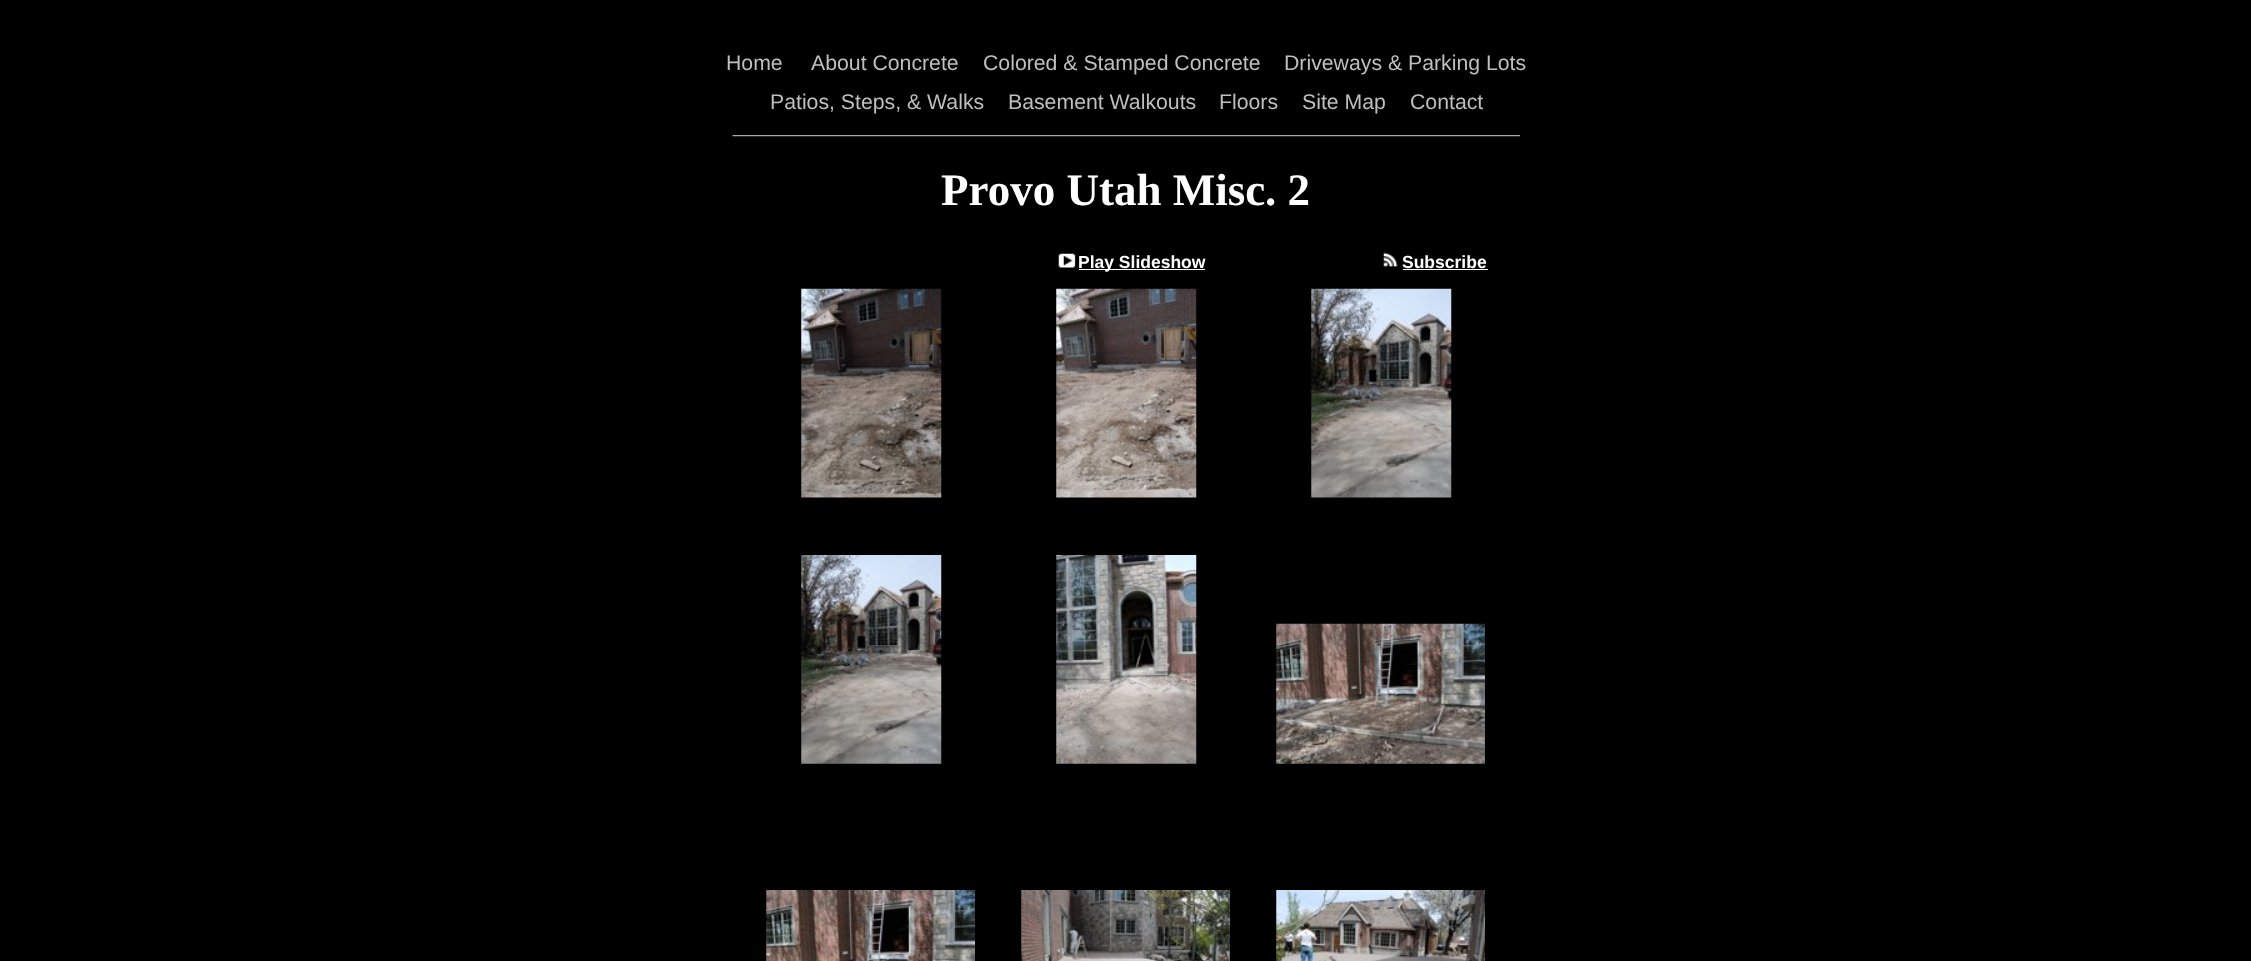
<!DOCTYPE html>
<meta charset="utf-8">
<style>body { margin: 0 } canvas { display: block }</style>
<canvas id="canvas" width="2251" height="961"></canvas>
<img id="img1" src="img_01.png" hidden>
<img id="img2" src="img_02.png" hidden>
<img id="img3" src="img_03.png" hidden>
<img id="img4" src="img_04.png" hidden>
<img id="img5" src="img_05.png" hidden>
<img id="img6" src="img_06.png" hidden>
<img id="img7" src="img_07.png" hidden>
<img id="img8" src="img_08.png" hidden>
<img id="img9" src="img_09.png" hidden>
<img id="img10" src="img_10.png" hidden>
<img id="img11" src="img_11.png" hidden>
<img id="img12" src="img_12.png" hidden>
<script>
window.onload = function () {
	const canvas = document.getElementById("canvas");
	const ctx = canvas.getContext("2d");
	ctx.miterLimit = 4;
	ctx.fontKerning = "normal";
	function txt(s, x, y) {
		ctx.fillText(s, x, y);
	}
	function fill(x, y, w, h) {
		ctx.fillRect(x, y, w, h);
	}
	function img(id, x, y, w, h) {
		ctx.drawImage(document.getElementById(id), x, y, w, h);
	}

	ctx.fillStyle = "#000000";
	fill(0, 0, 2251, 961);
	img("img1", 732, 135, 788, 2);
	img("img2", 1058, 253, 18, 15);
	ctx.fillStyle = "#FFFFFF";
	fill(1079, 269, 126, 1);
	img("img3", 1383, 252, 15, 15);
	fill(1403, 269, 85, 1);
	img("img4", 801, 288, 141, 210);
	img("img5", 1056, 288, 141, 210);
	img("img6", 1311, 288, 141, 210);
	img("img7", 801, 555, 141, 209);
	img("img8", 1056, 555, 141, 209);
	img("img9", 1276, 623, 209, 141);
	img("img10", 766, 890, 209, 71);
	img("img11", 1021, 890, 209, 71);
	img("img12", 1276, 890, 209, 71);
	ctx.font = "21.25px Liberation Sans";
	ctx.fillStyle = "#BFBFBF";
	txt("Home", 726, 70);
	txt("About Concrete", 811, 70);
	txt("Colored & Stamped Concrete", 983, 70);
	txt("Driveways & Parking Lots", 1284, 70);
	txt("Patios, Steps, & Walks", 770, 109);
	txt("Basement Walkouts", 1008, 109);
	txt("Floors", 1219, 109);
	txt("Site Map", 1302, 109);
	txt("Contact", 1410, 109);
	ctx.font = "bold 45px Liberation Serif";
	ctx.fillStyle = "#FFFFFF";
	txt("Provo Utah Misc. 2", 941, 205);
	ctx.font = "bold 17.5px Liberation Sans";
	txt("Play Slideshow", 1078, 268);
	txt("Subscribe", 1402, 268);
};
</script>
